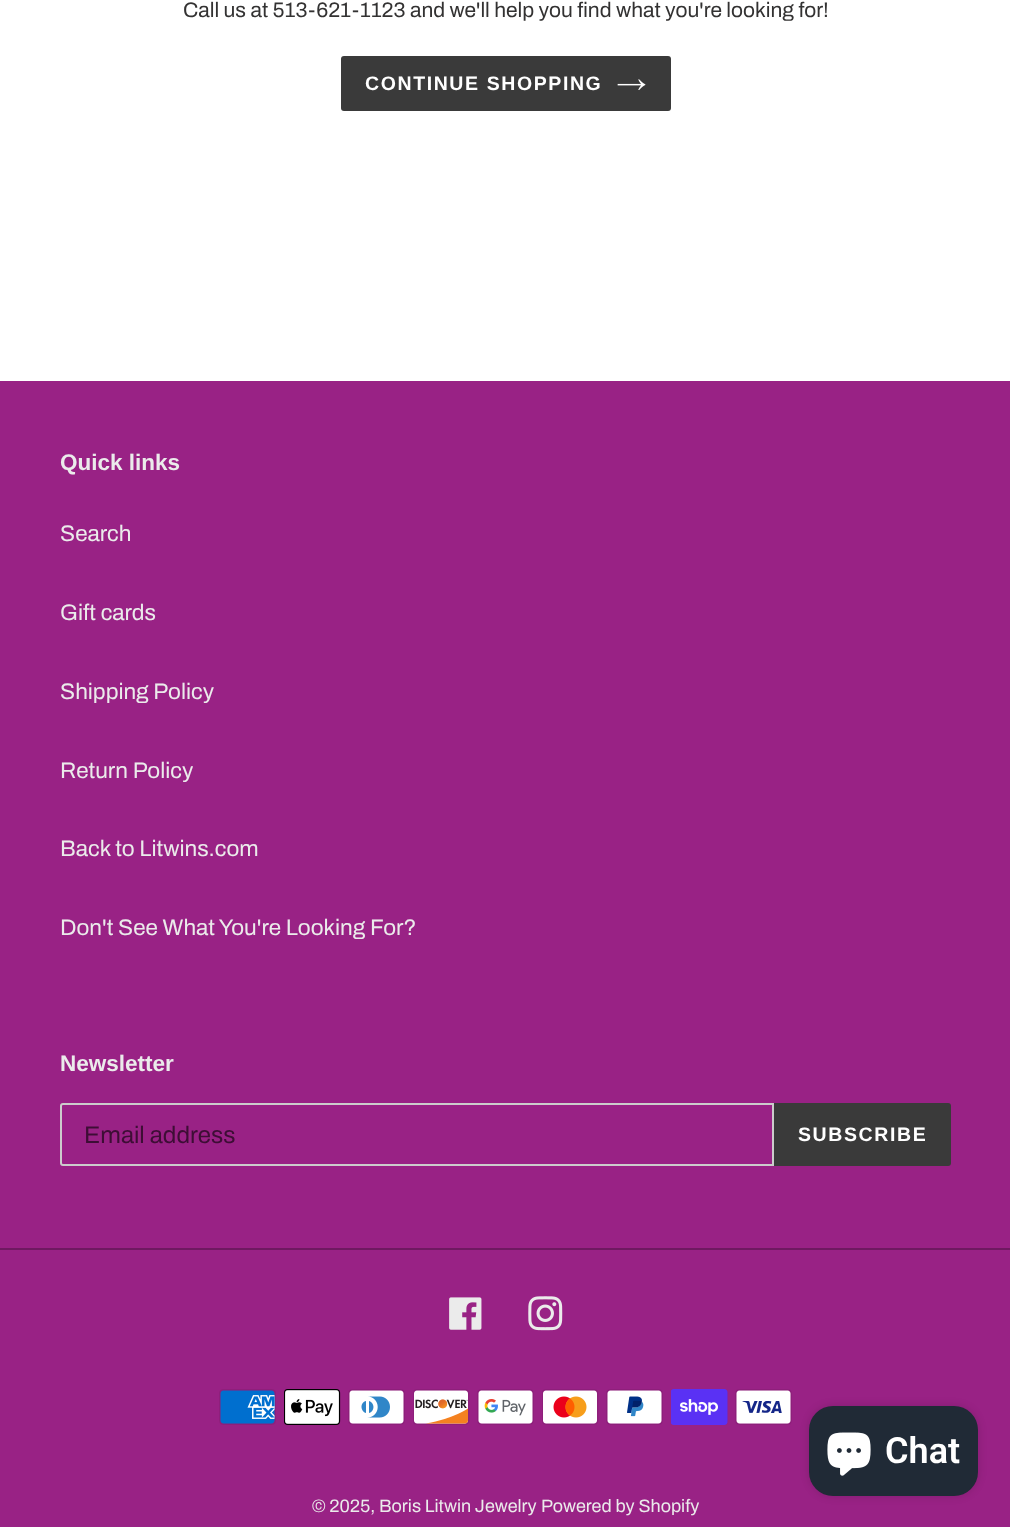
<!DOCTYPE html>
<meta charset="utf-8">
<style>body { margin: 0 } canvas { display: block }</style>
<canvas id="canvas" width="1010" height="1527"></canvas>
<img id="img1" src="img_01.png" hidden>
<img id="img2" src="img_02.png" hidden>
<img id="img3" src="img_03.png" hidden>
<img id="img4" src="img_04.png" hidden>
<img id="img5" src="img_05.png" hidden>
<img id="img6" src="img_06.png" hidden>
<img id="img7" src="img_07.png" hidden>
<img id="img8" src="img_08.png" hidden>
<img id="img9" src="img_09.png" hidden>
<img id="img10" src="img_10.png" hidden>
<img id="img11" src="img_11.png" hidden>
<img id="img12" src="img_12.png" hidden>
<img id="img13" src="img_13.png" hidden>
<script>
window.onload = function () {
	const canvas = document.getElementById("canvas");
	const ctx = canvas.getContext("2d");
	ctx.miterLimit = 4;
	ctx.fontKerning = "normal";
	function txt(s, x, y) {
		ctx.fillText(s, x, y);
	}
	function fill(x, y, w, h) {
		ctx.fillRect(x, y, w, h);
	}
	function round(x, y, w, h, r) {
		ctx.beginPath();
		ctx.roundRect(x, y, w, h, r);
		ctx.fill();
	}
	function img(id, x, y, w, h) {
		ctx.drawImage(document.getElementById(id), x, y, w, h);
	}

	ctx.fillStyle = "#FFFFFF";
	fill(0, 0, 1010, 1527);
	ctx.fillStyle = "#3A3A3A";
	round(341, 56, 330, 55, 3);
	img("img1", 617, 79, 29, 11);
	ctx.fillStyle = "#992285";
	fill(0, 381, 1010, 1146);
	ctx.beginPath();
	ctx.roundRect(61, 1104, 712, 61, [2, 0, 0, 2]);
	ctx.strokeStyle = "#CCCCCC";
	ctx.lineWidth = 2;
	ctx.stroke();
	ctx.fillStyle = "#3A3A3A";
	ctx.beginPath();
	ctx.roundRect(774, 1103, 177, 63, [0, 3, 3, 0]);
	ctx.fill();
	ctx.fillStyle = "#6F1961";
	fill(0, 1248, 1010, 2);
	img("img2", 449, 1297, 33, 33);
	img("img3", 528, 1296, 35, 35);
	img("img4", 219, 1389, 57, 36);
	img("img5", 284, 1389, 57, 36);
	img("img6", 348, 1389, 57, 36);
	img("img7", 413, 1389, 57, 36);
	img("img8", 477, 1389, 57, 36);
	img("img9", 542, 1389, 57, 36);
	img("img10", 606, 1389, 57, 36);
	img("img11", 671, 1389, 57, 36);
	img("img12", 735, 1389, 57, 36);
	ctx.fillStyle = "rgba(0, 0, 0, 0.15)";
	ctx.filter = "blur(4px)";
	ctx.beginPath();
	ctx.roundRect(809, 1406, 169, 90, 24);
	ctx.fill();
	ctx.filter = "none";
	ctx.fillStyle = "#202A36";
	round(809, 1406, 169, 90, 24);
	img("img13", 827, 1432, 44, 44);
	ctx.font = "21px Archivo";
	ctx.fillStyle = "#333232";
	txt("Call us at 513-621-1123 and we'll help you find what you're looking for!", 183, 17);
	ctx.letterSpacing = "1.6px";
	ctx.font = "bold 19.5px Liberation Sans";
	ctx.fillStyle = "#FFFFFF";
	txt("CONTINUE SHOPPING", 365, 90);
	ctx.letterSpacing = "0px";
	ctx.font = "bold 22.5px Liberation Sans";
	ctx.fillStyle = "#EBEBEB";
	txt("Quick links", 60, 470);
	ctx.font = "22.5px Archivo";
	txt("Search", 60, 541);
	txt("Gift cards", 60, 620);
	txt("Shipping Policy", 60, 699);
	txt("Return Policy", 60, 778);
	txt("Back to Litwins.com", 60, 856);
	txt("Don't See What You're Looking For?", 60, 935);
	ctx.font = "bold 22.5px Liberation Sans";
	txt("Newsletter", 60, 1071);
	ctx.font = "24px Archivo";
	ctx.fillStyle = "#3D0E35";
	txt("Email address", 84, 1143);
	ctx.letterSpacing = "1.6px";
	ctx.font = "bold 19.5px Liberation Sans";
	ctx.fillStyle = "#FFFFFF";
	txt("SUBSCRIBE", 798, 1141);
	ctx.letterSpacing = "0px";
	ctx.font = "18px Archivo";
	ctx.fillStyle = "#EBEBEB";
	txt("© 2025, Boris Litwin Jewelry", 312, 1512);
	txt("Powered by Shopify", 541, 1512);
	ctx.font = "600 36px Roboto";
	ctx.fillStyle = "#FFFFFF";
	txt("Chat", 885, 1463);
};
</script>
